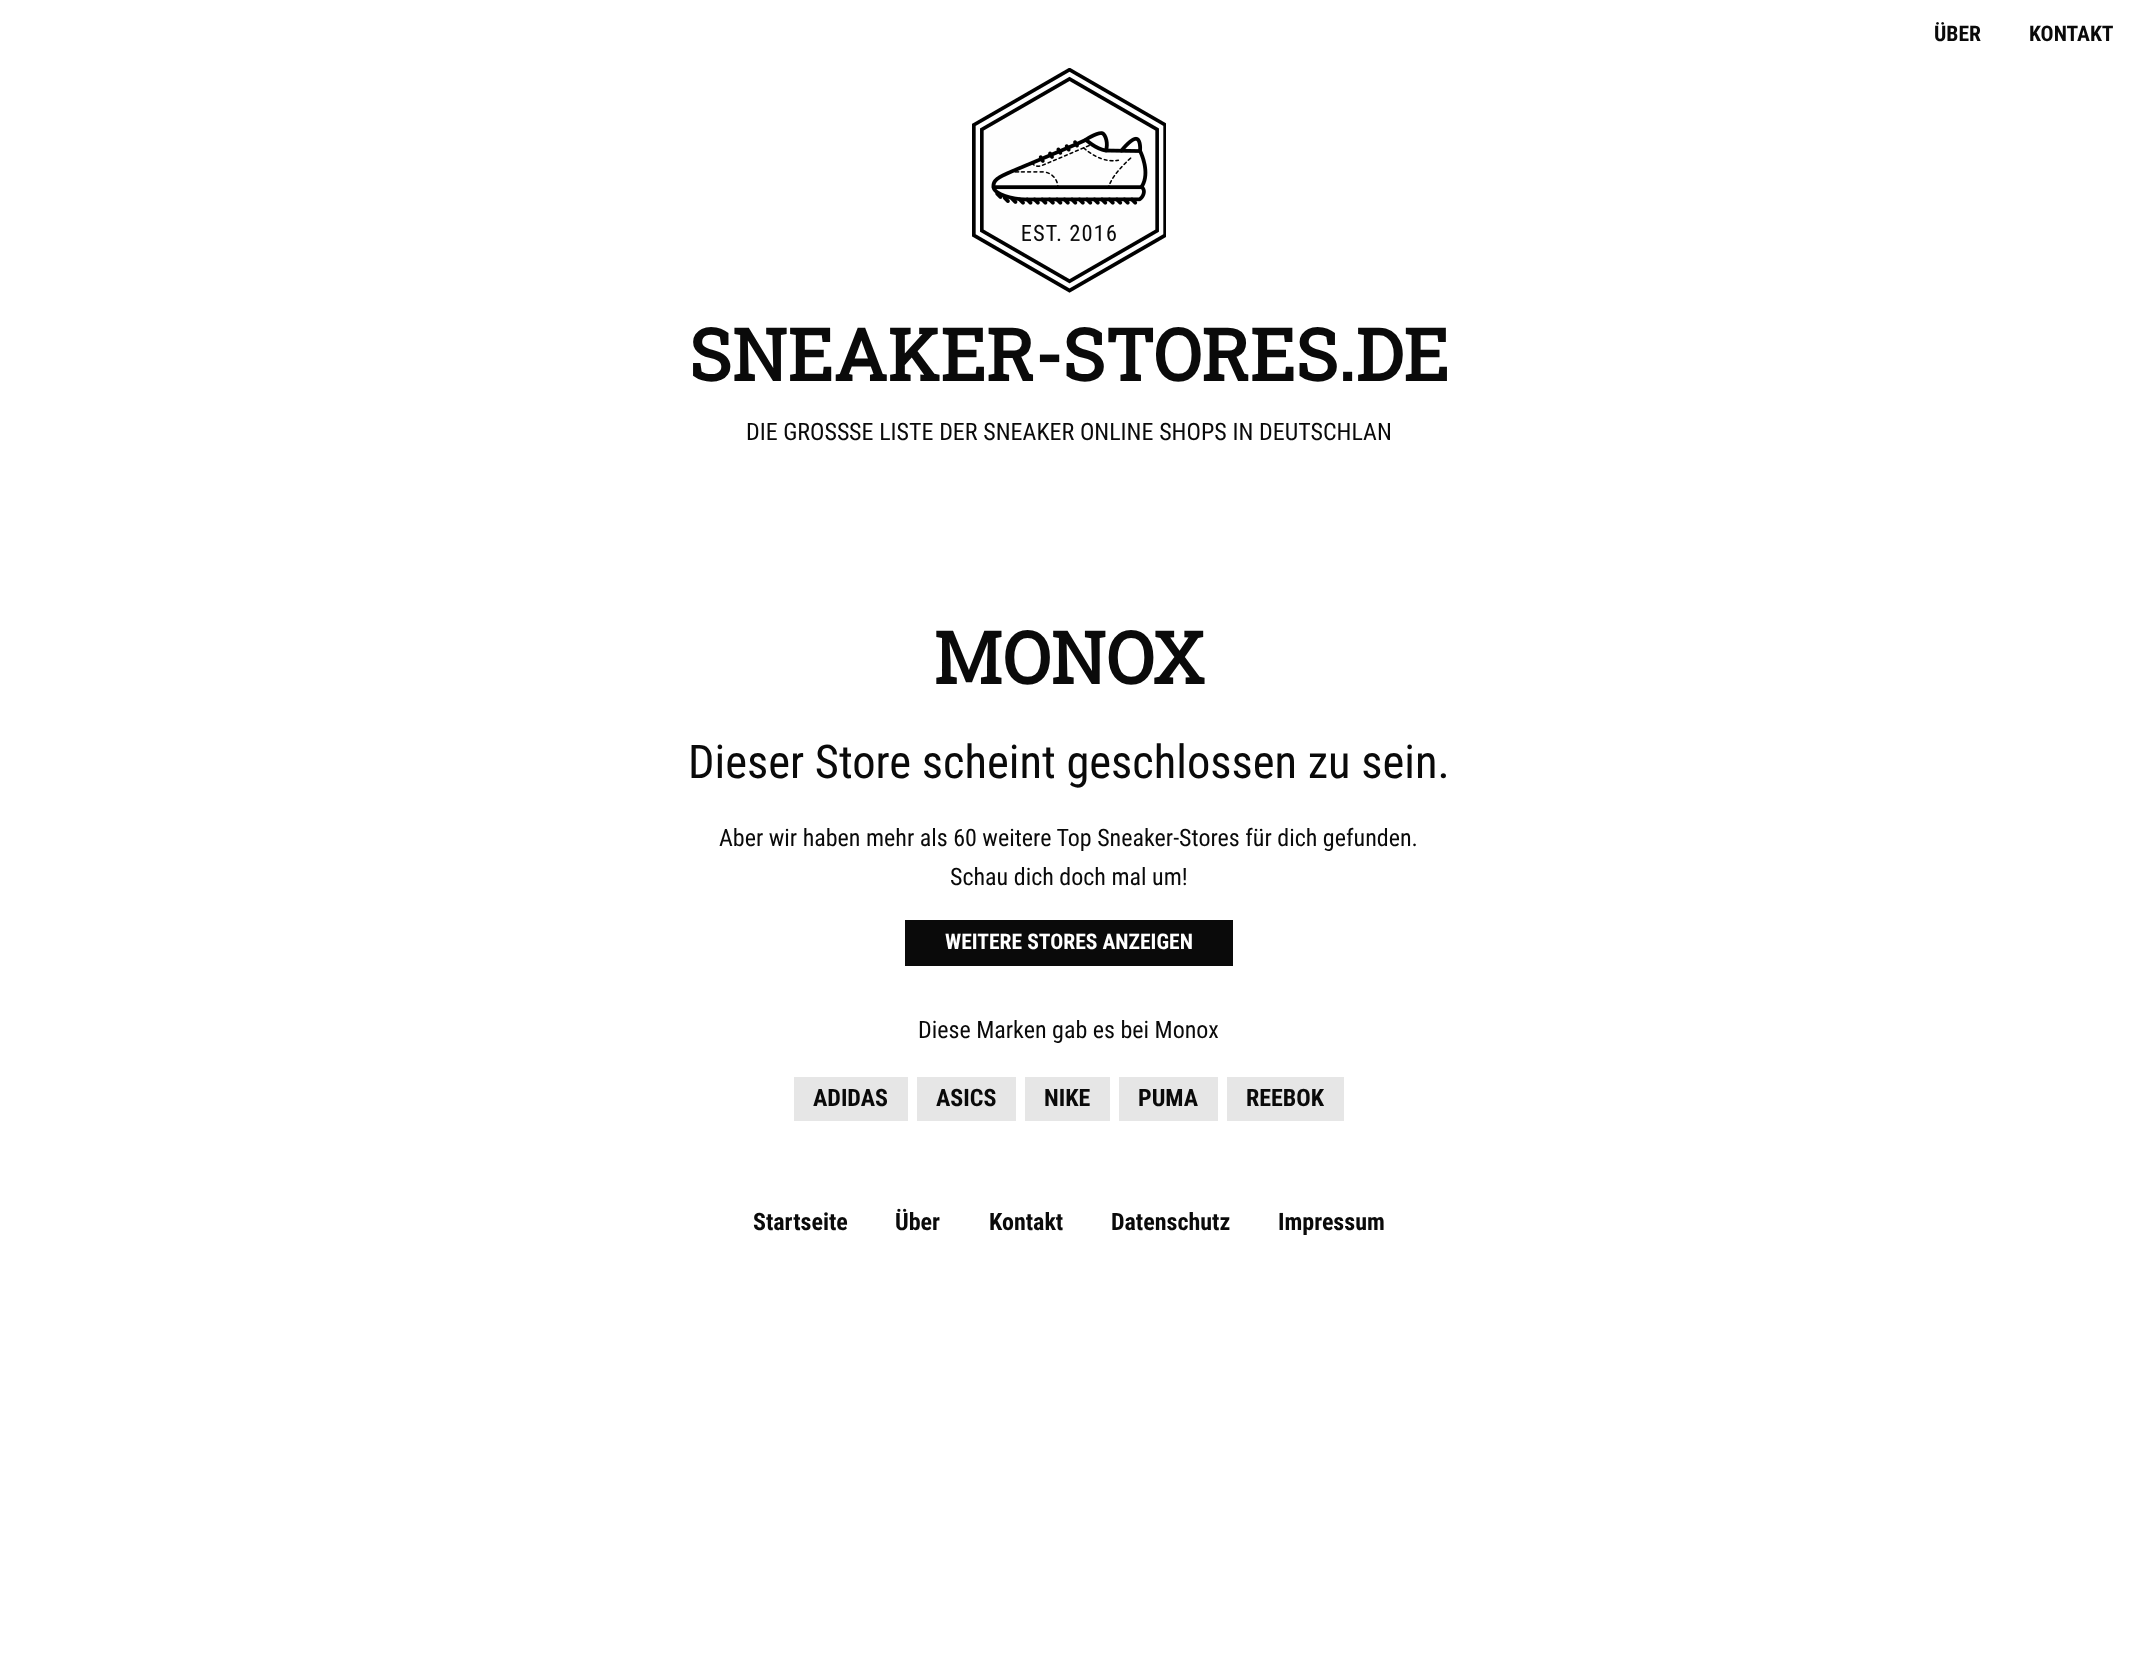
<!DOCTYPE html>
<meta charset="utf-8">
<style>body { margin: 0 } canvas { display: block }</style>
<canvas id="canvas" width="2137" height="1675"></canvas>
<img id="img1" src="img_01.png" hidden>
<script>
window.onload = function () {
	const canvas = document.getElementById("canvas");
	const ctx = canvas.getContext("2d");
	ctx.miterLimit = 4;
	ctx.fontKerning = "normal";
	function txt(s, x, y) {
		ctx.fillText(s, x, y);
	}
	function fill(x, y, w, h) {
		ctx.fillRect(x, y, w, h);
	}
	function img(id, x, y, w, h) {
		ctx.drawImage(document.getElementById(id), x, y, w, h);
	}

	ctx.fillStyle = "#FFFFFF";
	fill(0, 0, 2137, 1675);
	img("img1", 972, 68, 194, 225);
	ctx.fillStyle = "#0A0A0A";
	fill(905, 920, 328, 46);
	ctx.fillStyle = "#E6E6E6";
	fill(794, 1077, 114, 44);
	fill(917, 1077, 99, 44);
	fill(1025, 1077, 85, 44);
	fill(1119, 1077, 99, 44);
	fill(1227, 1077, 117, 44);
	ctx.font = "bold 21.6px Roboto Condensed";
	ctx.fillStyle = "#0A0A0A";
	txt("ÜBER", 1934, 41);
	txt("KONTAKT", 2029, 41);
	ctx.font = "bold 72px Roboto Slab";
	txt("SNEAKER-STORES.DE", 689, 381);
	ctx.font = "24px Roboto Condensed";
	txt("DIE GROSS", 746, 440);
	ctx.wordSpacing = "0.25px";
	txt("SE LISTE DER SNEAKER ONLINE SHOPS IN DEUTSCHLAN", 849, 440);
	ctx.wordSpacing = "0px";
	ctx.font = "bold 72px Roboto Slab";
	txt("MONOX", 933, 684);
	ctx.font = "46.5px Roboto Condensed";
	txt("Dieser Store scheint geschlossen zu sein.", 688, 778);
	ctx.font = "24px Roboto Condensed";
	txt("Aber wir haben mehr als 60 weitere Top Sneaker-Stores für dich gefunden.", 719, 846);
	txt("Schau dich doch mal um!", 950, 885);
	ctx.font = "bold 21.6px Roboto Condensed";
	ctx.fillStyle = "#FFFFFF";
	txt("WEITERE STORES ANZEIGEN", 945, 949);
	ctx.font = "24px Roboto Condensed";
	ctx.fillStyle = "#0A0A0A";
	txt("Diese Marken gab es bei Monox", 918, 1038);
	ctx.font = "bold 24px Roboto Condensed";
	txt("ADIDAS", 813, 1106);
	txt("ASICS", 936, 1106);
	txt("NIKE", 1044, 1106);
	txt("PUMA", 1138, 1106);
	txt("REEBOK", 1246, 1106);
	txt("Startseite", 753, 1230);
	txt("Über", 895, 1230);
	txt("Kontakt", 989, 1230);
	txt("Datenschutz", 1111, 1230);
	txt("Impressum", 1278, 1230);
};
</script>
